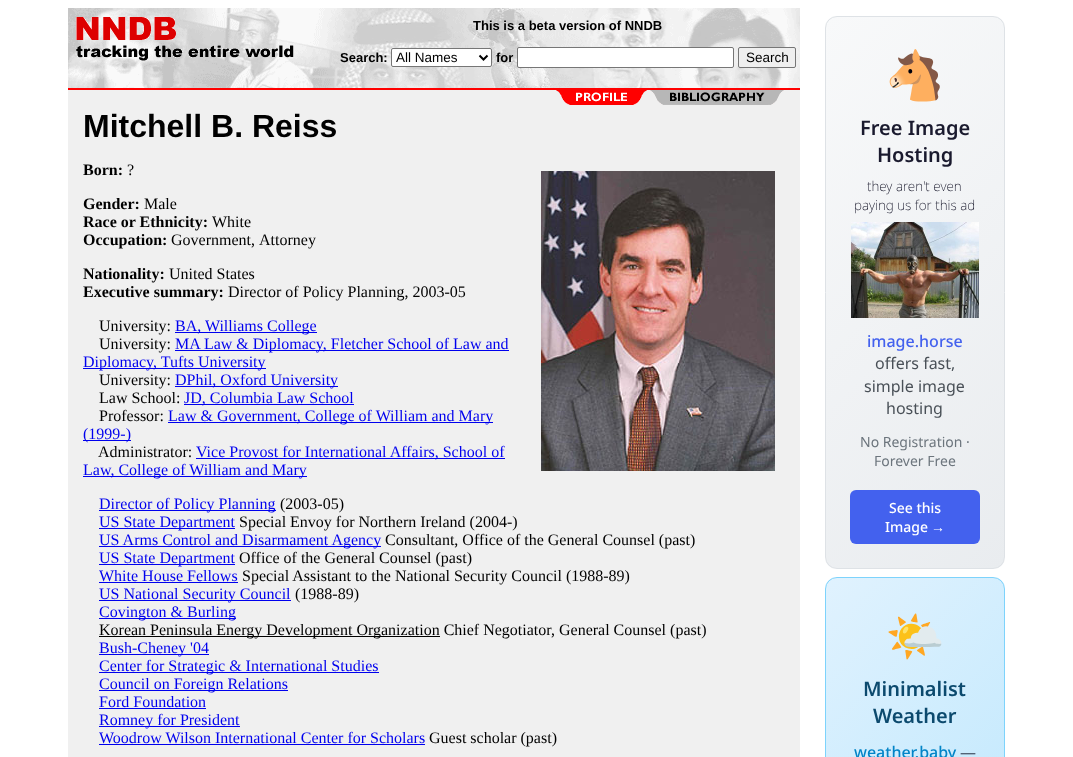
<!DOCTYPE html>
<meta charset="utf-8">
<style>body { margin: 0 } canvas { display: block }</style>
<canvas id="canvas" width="1073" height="757"></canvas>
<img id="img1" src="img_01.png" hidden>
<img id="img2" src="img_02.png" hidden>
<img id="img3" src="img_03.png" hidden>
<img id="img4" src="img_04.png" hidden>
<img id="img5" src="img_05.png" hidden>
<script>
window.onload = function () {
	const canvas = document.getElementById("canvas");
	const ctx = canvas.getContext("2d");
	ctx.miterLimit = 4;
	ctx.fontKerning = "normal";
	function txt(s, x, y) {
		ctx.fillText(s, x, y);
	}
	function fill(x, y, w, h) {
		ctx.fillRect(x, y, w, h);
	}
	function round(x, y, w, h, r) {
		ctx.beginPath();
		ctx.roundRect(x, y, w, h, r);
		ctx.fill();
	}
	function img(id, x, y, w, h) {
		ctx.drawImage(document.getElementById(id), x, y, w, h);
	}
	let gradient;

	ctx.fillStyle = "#FFFFFF";
	fill(0, 0, 1073, 757);
	img("img1", 68, 8, 732, 80);
	img("img2", 76, 17, 218, 44);
	ctx.beginPath();
	ctx.roundRect(391.5, 48.5, 100, 18, 1.5);
	ctx.fill();
	ctx.strokeStyle = "#767676";
	ctx.stroke();
	ctx.beginPath();
	ctx.moveTo(479.5, 55.5);
	ctx.lineTo(483.5, 59.5);
	ctx.lineTo(487.5, 55.5);
	ctx.strokeStyle = "#000000";
	ctx.lineWidth = 2;
	ctx.stroke();
	ctx.beginPath();
	ctx.roundRect(517.5, 47.5, 216, 20, 1.5);
	ctx.fill();
	ctx.strokeStyle = "#767676";
	ctx.lineWidth = 1;
	ctx.stroke();
	ctx.fillStyle = "#EFEFEF";
	ctx.beginPath();
	ctx.roundRect(738.5, 47.5, 57, 20, 1.5);
	ctx.fill();
	ctx.stroke();
	ctx.fillStyle = "#FF0000";
	fill(68, 88, 732, 2);
	ctx.fillStyle = "#F0F0F0";
	fill(68, 90, 732, 667);
	img("img3", 556, 90, 228, 15);
	img("img4", 541, 171, 234, 300);
	ctx.fillStyle = "#0000EE";
	fill(175, 332, 142, 1);
	fill(175, 350, 334, 1);
	fill(83, 368, 183, 1);
	fill(175, 386, 163, 1);
	fill(184, 404, 170, 1);
	fill(168, 422, 325, 1);
	fill(83, 440, 48, 1);
	fill(196, 458, 309, 1);
	fill(83, 476, 224, 1);
	fill(99, 510, 177, 1);
	fill(99, 528, 136, 1);
	fill(99, 546, 282, 1);
	fill(99, 564, 136, 1);
	fill(99, 582, 139, 1);
	fill(99, 600, 192, 1);
	fill(99, 618, 137, 1);
	ctx.fillStyle = "#000000";
	fill(99, 636, 341, 1);
	ctx.fillStyle = "#0000EE";
	fill(99, 654, 110, 1);
	fill(99, 672, 280, 1);
	fill(99, 690, 189, 1);
	fill(99, 708, 107, 1);
	fill(99, 726, 141, 1);
	fill(99, 744, 326, 1);
	ctx.save();
	ctx.beginPath();
	ctx.roundRect(825, 16, 180, 553, 12);
	ctx.clip();
	gradient = ctx.createLinearGradient(733, 110, 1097, 475);
	gradient.addColorStop(0, "#F8F9FA");
	gradient.addColorStop(1, "#E9ECEF");
	ctx.fillStyle = gradient;
	fill(826, 17, 178, 551);
	ctx.restore();
	ctx.beginPath();
	ctx.roundRect(825.5, 16.5, 179, 552, 11.5);
	ctx.strokeStyle = "#DEE2E6";
	ctx.stroke();
	img("img5", 851, 222, 128, 96);
	ctx.fillStyle = "#4361EE";
	round(850, 490, 130, 54, 6);
	ctx.save();
	ctx.beginPath();
	ctx.roundRect(825, 577, 180, 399, 12);
	ctx.clip();
	gradient = ctx.createLinearGradient(771, 633, 1059, 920);
	gradient.addColorStop(0, "#E0F2FE");
	gradient.addColorStop(1, "#BAE6FD");
	ctx.fillStyle = gradient;
	fill(826, 578, 178, 179);
	ctx.restore();
	ctx.beginPath();
	ctx.roundRect(825.5, 577.5, 179, 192, 11.5);
	ctx.strokeStyle = "#7DD3FC";
	ctx.stroke();
	ctx.font = "bold 13px Liberation Sans";
	ctx.fillStyle = "#000000";
	txt("This is a beta version of NNDB", 473, 30);
	txt("Search:", 340, 62);
	ctx.font = "13.5px Liberation Sans";
	txt("All Names", 396, 62);
	ctx.font = "bold 13px Liberation Sans";
	txt("for", 496, 62);
	ctx.font = "13.5px Liberation Sans";
	txt("Search", 746, 62);
	ctx.font = "bold 32px Liberation Sans";
	txt("Mitchell B. Reiss", 83, 137);
	ctx.font = "bold 16px Liberation Serif";
	txt("Born:", 83, 175);
	ctx.font = "16px Liberation Serif";
	txt("?", 127, 175);
	ctx.font = "bold 16px Liberation Serif";
	txt("Gender:", 83, 209);
	ctx.font = "16px Liberation Serif";
	txt("Male", 144, 209);
	ctx.font = "bold 16px Liberation Serif";
	txt("Race or Ethnicity:", 83, 227);
	ctx.font = "16px Liberation Serif";
	txt("White", 212, 227);
	ctx.font = "bold 16px Liberation Serif";
	txt("Occupation:", 83, 245);
	ctx.font = "16px Liberation Serif";
	txt("Government,", 171, 245);
	txt("Attorney", 259, 245);
	ctx.font = "bold 16px Liberation Serif";
	txt("Nationality:", 83, 279);
	ctx.font = "16px Liberation Serif";
	txt("United States", 169, 279);
	ctx.font = "bold 16px Liberation Serif";
	txt("Executive summary:", 83, 297);
	ctx.font = "16px Liberation Serif";
	txt("Director of Policy Planning, 2003-05", 228, 297);
	txt("University:", 99, 331);
	ctx.fillStyle = "#0000EE";
	txt("BA, Williams College", 175, 331);
	ctx.fillStyle = "#000000";
	txt("University:", 99, 349);
	ctx.fillStyle = "#0000EE";
	txt("MA Law & Diplomacy, Fletcher School of Law and", 175, 349);
	txt("Diplomacy, Tufts University", 83, 367);
	ctx.fillStyle = "#000000";
	txt("University:", 99, 385);
	ctx.fillStyle = "#0000EE";
	txt("DPhil, Oxford University", 175, 385);
	ctx.fillStyle = "#000000";
	txt("Law School:", 99, 403);
	ctx.fillStyle = "#0000EE";
	txt("JD, Columbia Law School", 184, 403);
	ctx.fillStyle = "#000000";
	txt("Professor:", 99, 421);
	ctx.fillStyle = "#0000EE";
	txt("Law & Government, College of William and Mary", 168, 421);
	txt("(1999-)", 83, 439);
	ctx.fillStyle = "#000000";
	txt("Administrator:", 98, 457);
	ctx.fillStyle = "#0000EE";
	txt("Vice Provost for International Affairs, School of", 196, 457);
	txt("Law, College of William and Mary", 83, 475);
	txt("Director of Policy Planning", 99, 509);
	ctx.fillStyle = "#000000";
	txt("(2003-05)", 280, 509);
	ctx.fillStyle = "#0000EE";
	txt("US State Department", 99, 527);
	ctx.fillStyle = "#000000";
	txt("Special Envoy for Northern Ireland (2004-)", 239, 527);
	ctx.fillStyle = "#0000EE";
	txt("US Arms Control and Disarmament Agency", 99, 545);
	ctx.fillStyle = "#000000";
	txt("Consultant, Office of the General Counsel (past)", 385, 545);
	ctx.fillStyle = "#0000EE";
	txt("US State Department", 99, 563);
	ctx.fillStyle = "#000000";
	txt("Office of the General Counsel (past)", 239, 563);
	ctx.fillStyle = "#0000EE";
	txt("White House Fellows", 99, 581);
	ctx.fillStyle = "#000000";
	txt("Special Assistant to the National Security Council (1988-89)", 242, 581);
	ctx.fillStyle = "#0000EE";
	txt("US National Security Council", 99, 599);
	ctx.fillStyle = "#000000";
	txt("(1988-89)", 295, 599);
	ctx.fillStyle = "#0000EE";
	txt("Covington & Burling", 99, 617);
	ctx.fillStyle = "#000000";
	txt("Korean Peninsula Energy Development Organization Chief Negotiator, General Counsel (past)", 99, 635);
	ctx.fillStyle = "#0000EE";
	txt("Bush-Cheney '04", 99, 653);
	txt("Center for Strategic & International Studies", 99, 671);
	txt("Council on Foreign Relations", 99, 689);
	txt("Ford Foundation", 99, 707);
	txt("Romney for President", 99, 725);
	txt("Woodrow Wilson International Center for Scholars", 99, 743);
	ctx.fillStyle = "#000000";
	txt("Guest scholar (past)", 429, 743);
	ctx.font = "48px Noto Color Emoji";
	ctx.fillStyle = "#0000EE";
	txt("🐴", 885, 92);
	ctx.font = "600 20px Noto Sans";
	ctx.fillStyle = "#1A1A2E";
	txt("Free Image", 860, 135);
	txt("Hosting", 877, 162);
	ctx.font = "200 13.5px Noto Sans";
	ctx.fillStyle = "#0A0A1E";
	txt("they aren't even", 867, 191);
	txt("paying us for this ad", 854, 210);
	ctx.font = "500 16px Noto Sans";
	ctx.fillStyle = "#4361EE";
	txt("image.horse", 867, 347);
	ctx.font = "16px Noto Sans";
	ctx.fillStyle = "#495057";
	txt("offers fast,", 875, 369);
	txt("simple image", 864, 392);
	txt("hosting", 886, 414);
	ctx.font = "14px Noto Sans";
	ctx.fillStyle = "#6C757D";
	txt("No Registration ·", 860, 447);
	txt("Forever Free", 874, 466);
	ctx.font = "500 14px Noto Sans";
	ctx.fillStyle = "#FFFFFF";
	txt("See this", 889, 513);
	txt("Image", 885, 532);
	ctx.font = "14px Liberation Sans";
	txt("→", 931, 532);
	ctx.font = "48px Noto Color Emoji";
	ctx.fillStyle = "#0000EE";
	txt("🌤️", 885, 653);
	ctx.font = "600 20px Noto Sans";
	ctx.fillStyle = "#0C4A6E";
	txt("Minimalist", 863, 696);
	txt("Weather", 873, 723);
	ctx.font = "500 16px Noto Sans";
	ctx.fillStyle = "#0284C7";
	txt("weather.baby", 854, 758);
	ctx.font = "16px Noto Sans";
	ctx.fillStyle = "#475569";
	txt("—", 960, 758);
};
</script>
